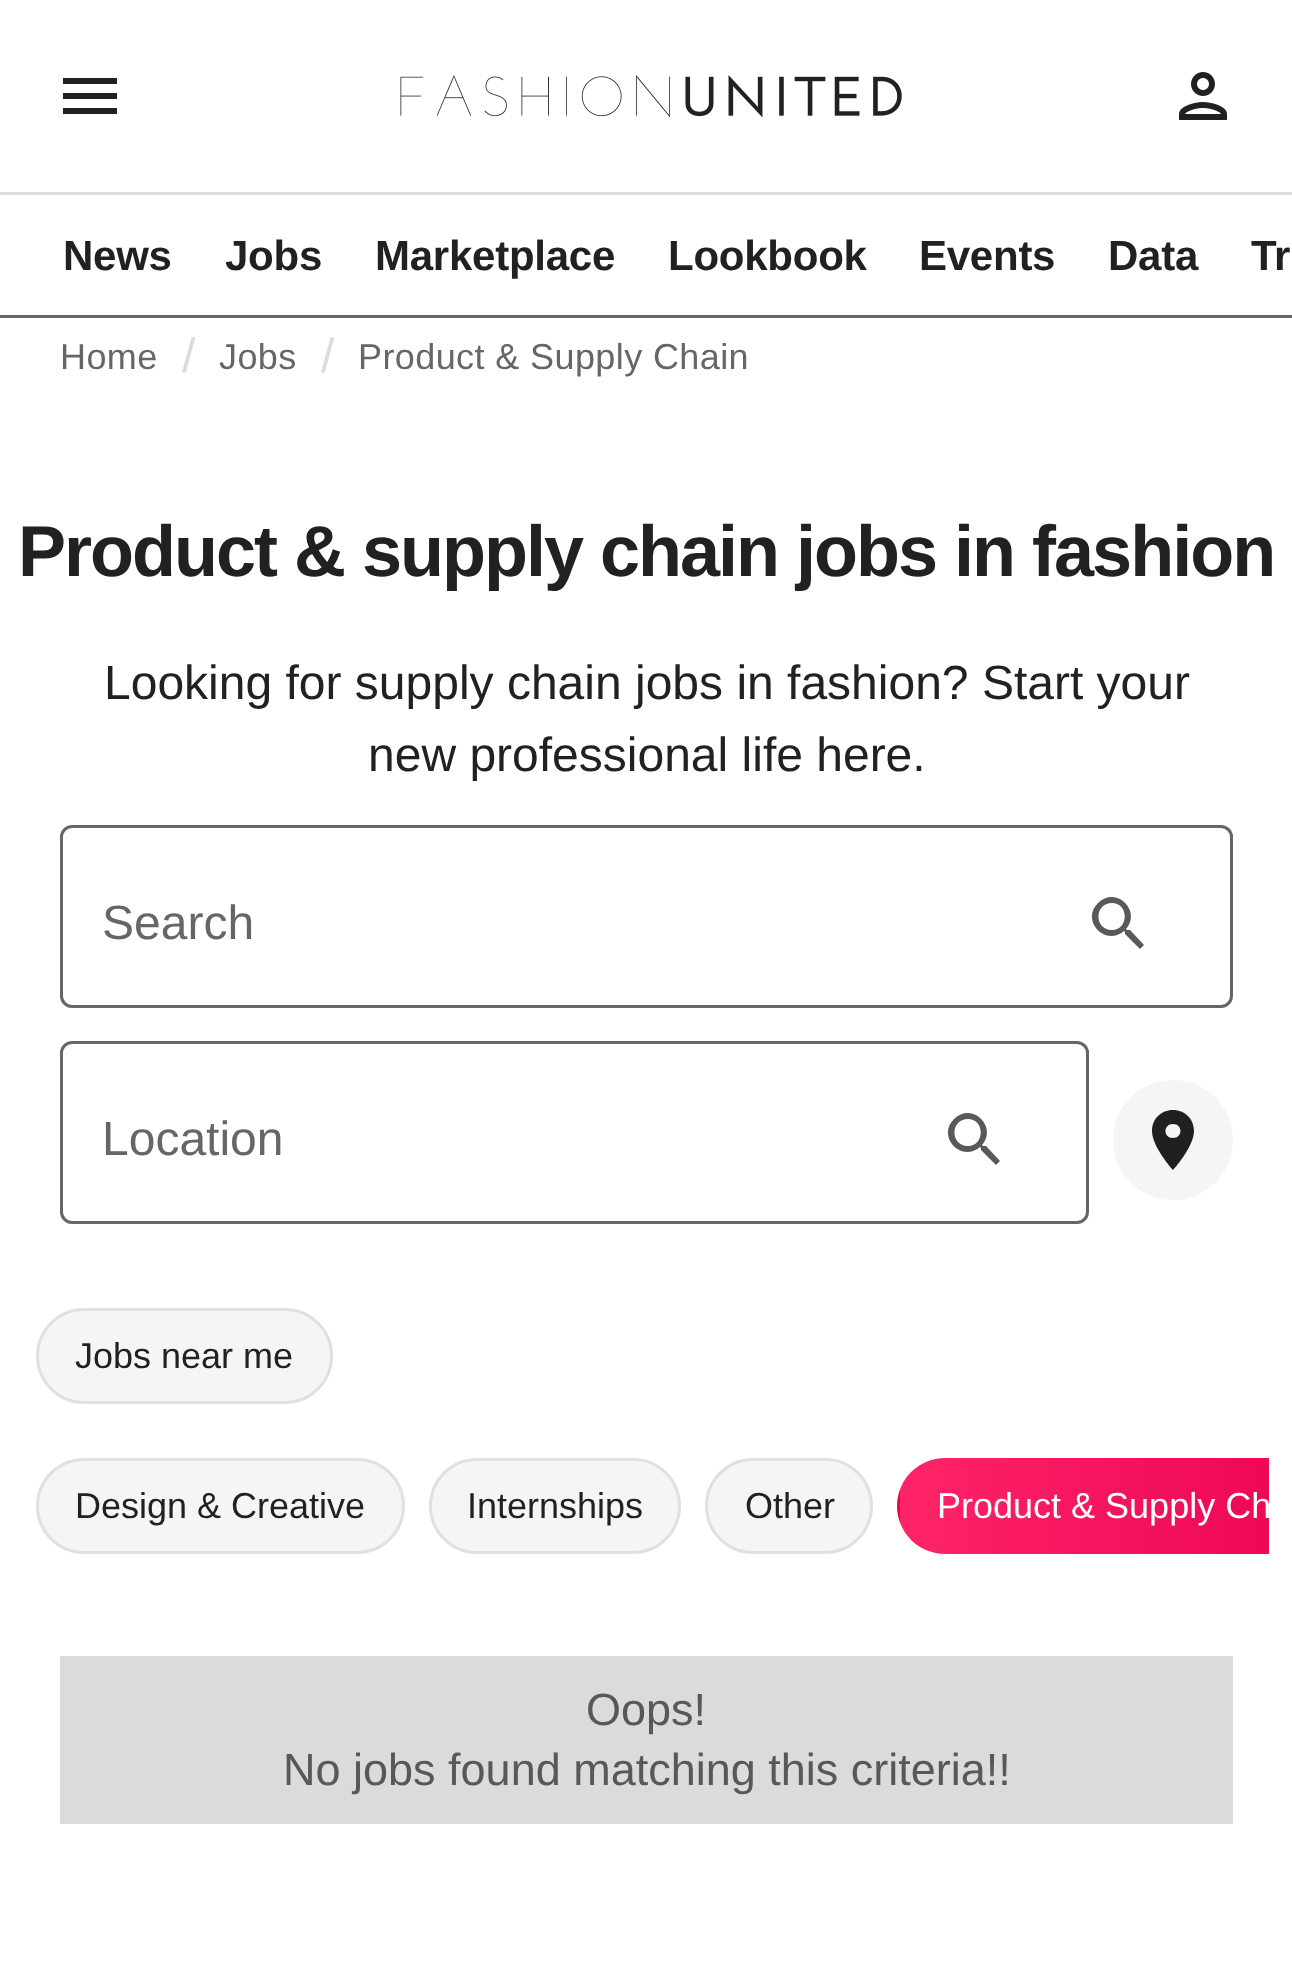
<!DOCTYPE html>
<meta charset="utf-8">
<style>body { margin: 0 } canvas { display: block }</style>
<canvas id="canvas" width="1292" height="1973"></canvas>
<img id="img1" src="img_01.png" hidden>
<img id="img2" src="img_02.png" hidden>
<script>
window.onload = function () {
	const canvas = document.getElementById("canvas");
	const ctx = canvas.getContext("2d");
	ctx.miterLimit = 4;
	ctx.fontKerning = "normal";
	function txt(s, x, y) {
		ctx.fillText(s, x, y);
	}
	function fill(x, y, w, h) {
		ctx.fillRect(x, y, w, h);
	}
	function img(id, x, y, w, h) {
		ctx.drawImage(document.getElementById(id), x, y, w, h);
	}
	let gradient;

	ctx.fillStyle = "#FFFFFF";
	fill(0, 0, 1292, 1973);
	ctx.fillStyle = "#DBDBDB";
	fill(0, 192, 1292, 3);
	ctx.fillStyle = "#212121";
	ctx.beginPath();
	ctx.moveTo(63, 114);
	ctx.lineTo(117, 114);
	ctx.lineTo(117, 108);
	ctx.lineTo(63, 108);
	ctx.closePath();
	ctx.moveTo(63, 99);
	ctx.lineTo(117, 99);
	ctx.lineTo(117, 93);
	ctx.lineTo(63, 93);
	ctx.closePath();
	ctx.moveTo(63, 78);
	ctx.lineTo(63, 84);
	ctx.lineTo(117, 84);
	ctx.lineTo(117, 78);
	ctx.closePath();
	ctx.fill();
	img("img1", 400, 75, 502, 43);
	img("img2", 1179, 72, 48, 48);
	ctx.fillStyle = "#666666";
	fill(0, 315, 1292, 3);
	ctx.fillStyle = "#58595B";
	ctx.beginPath();
	ctx.moveTo(1130, 930);
	ctx.lineTo(1127, 930);
	ctx.lineTo(1126, 929);
	ctx.bezierCurveTo(1142, 911, 1116, 885, 1098, 903);
	ctx.bezierCurveTo(1080, 921, 1106, 947, 1124, 931);
	ctx.lineTo(1125, 932);
	ctx.lineTo(1125, 934);
	ctx.lineTo(1140, 949);
	ctx.lineTo(1144, 945);
	ctx.closePath();
	ctx.moveTo(1112, 930);
	ctx.bezierCurveTo(1094, 930, 1094, 903, 1112, 903);
	ctx.bezierCurveTo(1129, 903, 1129, 930, 1112, 930);
	ctx.fill();
	ctx.beginPath();
	ctx.roundRect(61.5, 826.5, 1170, 180, 10.5);
	ctx.strokeStyle = "#666666";
	ctx.lineWidth = 3;
	ctx.stroke();
	ctx.beginPath();
	ctx.moveTo(986, 1146);
	ctx.lineTo(983, 1146);
	ctx.lineTo(982, 1145);
	ctx.bezierCurveTo(998, 1127, 972, 1101, 954, 1119);
	ctx.bezierCurveTo(936, 1137, 962, 1163, 980, 1147);
	ctx.lineTo(981, 1148);
	ctx.lineTo(981, 1150);
	ctx.lineTo(996, 1165);
	ctx.lineTo(1000, 1161);
	ctx.closePath();
	ctx.moveTo(968, 1146);
	ctx.bezierCurveTo(950, 1146, 950, 1119, 968, 1119);
	ctx.bezierCurveTo(985, 1119, 985, 1146, 968, 1146);
	ctx.fill();
	ctx.beginPath();
	ctx.roundRect(61.5, 1042.5, 1026, 180, 10.5);
	ctx.stroke();
	ctx.fillStyle = "#F5F5F5";
	ctx.beginPath();
	ctx.arc(1173, 1140, 60, 0, Math.PI * 2);
	ctx.fill();
	ctx.fillStyle = "#202020";
	ctx.beginPath();
	ctx.moveTo(1173, 1110);
	ctx.bezierCurveTo(1161, 1110, 1152, 1119, 1152, 1131);
	ctx.bezierCurveTo(1152, 1147, 1173, 1170, 1173, 1170);
	ctx.bezierCurveTo(1173, 1170, 1194, 1147, 1194, 1131);
	ctx.bezierCurveTo(1194, 1119, 1185, 1110, 1173, 1110);
	ctx.moveTo(1173, 1138);
	ctx.bezierCurveTo(1163, 1138, 1163, 1124, 1173, 1124);
	ctx.bezierCurveTo(1183, 1124, 1183, 1138, 1173, 1138);
	ctx.fill();
	ctx.fillStyle = "#F5F5F5";
	ctx.beginPath();
	ctx.roundRect(37.5, 1309.5, 294, 93, 46.5);
	ctx.fill();
	ctx.strokeStyle = "#E0E0E0";
	ctx.stroke();
	ctx.beginPath();
	ctx.roundRect(37.5, 1459.5, 366, 93, 46.5);
	ctx.fill();
	ctx.stroke();
	ctx.beginPath();
	ctx.roundRect(430.5, 1459.5, 249, 93, 46.5);
	ctx.fill();
	ctx.stroke();
	ctx.beginPath();
	ctx.roundRect(706.5, 1459.5, 165, 93, 46.5);
	ctx.fill();
	ctx.stroke();
	ctx.save();
	ctx.beginPath();
	ctx.roundRect(897, 1458, 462, 96, 48);
	ctx.clip();
	gradient = ctx.createLinearGradient(444, 1506, 900, 1506);
	gradient.addColorStop(0, "#FF2468");
	gradient.addColorStop(1, "#EA0151");
	ctx.fillStyle = gradient;
	fill(897, 1489, 3, 34);
	gradient = ctx.createLinearGradient(900, 1506, 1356, 1506);
	gradient.addColorStop(0, "#FF2468");
	gradient.addColorStop(1, "#EA0151");
	ctx.fillStyle = gradient;
	fill(900, 1458, 369, 96);
	ctx.restore();
	ctx.fillStyle = "#DBDBDB";
	fill(60, 1656, 1173, 168);
	ctx.letterSpacing = "-0.25px";
	ctx.font = "bold 42px Liberation Sans";
	ctx.fillStyle = "#212121";
	txt("News", 63, 270);
	txt("Jobs", 225, 270);
	txt("Marketplace", 375, 270);
	txt("Lookbook", 668, 270);
	txt("Events", 919, 270);
	txt("Data", 1108, 270);
	txt("Tr", 1251, 270);
	ctx.letterSpacing = "0.4px";
	ctx.font = "36px Liberation Sans";
	ctx.fillStyle = "#666666";
	txt("Home", 60, 369);
	ctx.letterSpacing = "0px";
	ctx.font = "48px Liberation Sans";
	ctx.fillStyle = "#DBDBDB";
	txt("/", 182, 372);
	ctx.letterSpacing = "0.4px";
	ctx.font = "36px Liberation Sans";
	ctx.fillStyle = "#666666";
	txt("Jobs", 219, 369);
	ctx.letterSpacing = "0px";
	ctx.font = "48px Liberation Sans";
	ctx.fillStyle = "#DBDBDB";
	txt("/", 321, 372);
	ctx.letterSpacing = "0.4px";
	ctx.font = "36px Liberation Sans";
	ctx.fillStyle = "#666666";
	txt("Product & Supply Chain", 358, 369);
	ctx.letterSpacing = "-2px";
	ctx.font = "bold 72px Liberation Sans";
	ctx.fillStyle = "#212121";
	txt("Product & supply chain jobs in fashion", 18, 576);
	ctx.letterSpacing = "0px";
	ctx.font = "48px Liberation Sans";
	txt("Looking for supply chain jobs in fashion? Start your", 104, 699);
	txt("new professional life here.", 368, 771);
	ctx.fillStyle = "#666666";
	txt("Search", 102, 939);
	txt("Location", 102, 1155);
	ctx.font = "36px Liberation Sans";
	ctx.fillStyle = "#212121";
	txt("Jobs near me", 75, 1368);
	txt("Design & Creative", 75, 1518);
	txt("Internships", 467, 1518);
	txt("Other", 745, 1518);
	ctx.save();
	ctx.beginPath();
	ctx.rect(24, 1434, 1245, 144);
	ctx.clip();
	ctx.fillStyle = "#FFFFFF";
	txt("Product & Supply Ch", 937, 1518);
	ctx.restore();
	ctx.font = "45px Liberation Sans";
	ctx.fillStyle = "#585858";
	txt("Oops!", 586, 1725);
	txt("No jobs found matching this criteria!!", 283, 1785);
};
</script>
